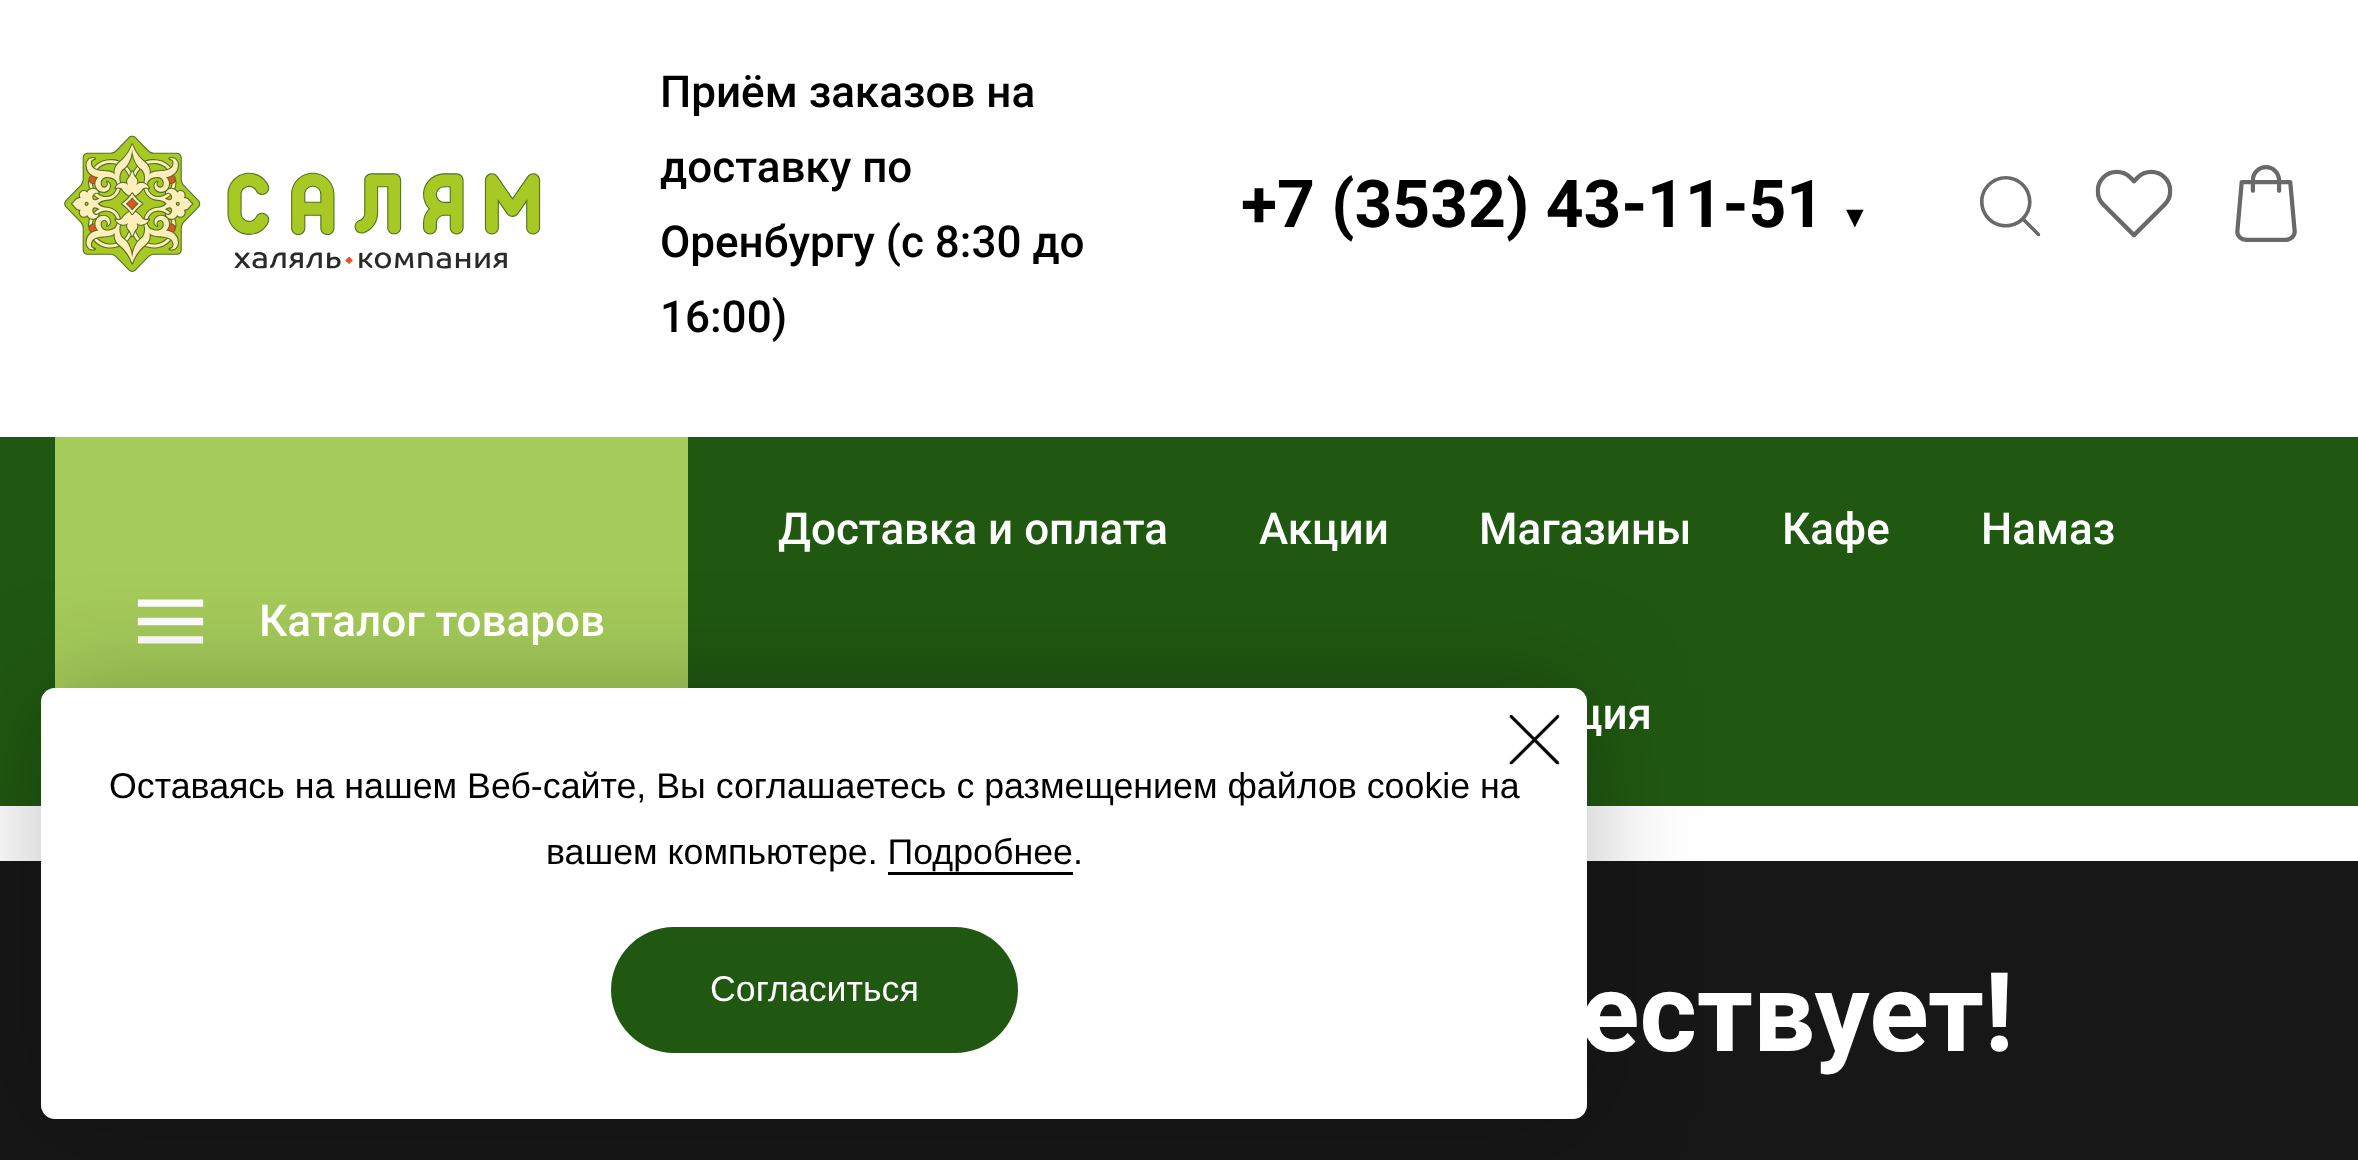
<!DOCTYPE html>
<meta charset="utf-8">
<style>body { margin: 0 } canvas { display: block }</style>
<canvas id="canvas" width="2358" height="1160"></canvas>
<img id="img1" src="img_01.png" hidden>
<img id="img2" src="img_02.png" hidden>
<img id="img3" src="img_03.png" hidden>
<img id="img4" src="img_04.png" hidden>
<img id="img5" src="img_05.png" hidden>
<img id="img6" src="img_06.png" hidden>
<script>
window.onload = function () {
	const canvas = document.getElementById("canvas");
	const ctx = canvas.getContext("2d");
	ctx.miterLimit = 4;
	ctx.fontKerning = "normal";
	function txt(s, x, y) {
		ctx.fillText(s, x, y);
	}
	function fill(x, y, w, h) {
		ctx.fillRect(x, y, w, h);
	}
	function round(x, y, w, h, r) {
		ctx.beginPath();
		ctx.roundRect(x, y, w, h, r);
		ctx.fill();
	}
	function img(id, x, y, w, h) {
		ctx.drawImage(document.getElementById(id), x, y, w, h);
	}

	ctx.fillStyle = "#FFFFFF";
	fill(0, 0, 2358, 1160);
	img("img1", 64, 135, 477, 137);
	img("img2", 1980, 176, 61, 61);
	img("img3", 2095, 169, 78, 69);
	img("img4", 2235, 165, 62, 77);
	ctx.fillStyle = "#205811";
	fill(0, 437, 2358, 369);
	ctx.fillStyle = "#A5CB5A";
	fill(55, 437, 633, 251);
	img("img5", 137, 599, 67, 45);
	ctx.fillStyle = "#171717";
	fill(0, 861, 2358, 299);
	ctx.fillStyle = "rgba(0, 0, 0, 0.25)";
	ctx.filter = "blur(55px)";
	ctx.beginPath();
	ctx.roundRect(41, 688, 1546, 431, 14);
	ctx.fill();
	ctx.filter = "none";
	ctx.fillStyle = "#FFFFFF";
	round(41, 688, 1546, 431, 14);
	img("img6", 1509, 715, 51, 50);
	ctx.fillStyle = "#000000";
	fill(888, 872, 185, 3);
	ctx.fillStyle = "#205811";
	round(611, 927, 407, 126, 63);
	ctx.font = "500 44px Roboto";
	ctx.fillStyle = "#000000";
	txt("Приём заказов на", 660, 107);
	txt("доставку по", 660, 182);
	txt("Оренбургу (с 8:30 до", 660, 257);
	txt("16:00)", 660, 332);
	ctx.font = "bold 66px Roboto";
	txt("+7 (3532) 43-11-51", 1241, 227);
	ctx.font = "bold 30px Liberation Sans";
	txt("▼", 1840, 227);
	ctx.font = "500 44px Roboto";
	ctx.fillStyle = "#FFFFFF";
	txt("Каталог товаров", 259, 636);
	txt("Доставка и оплата", 778, 544);
	txt("Акции", 1259, 544);
	txt("Магазины", 1479, 544);
	txt("Кафе", 1782, 544);
	txt("Намаз", 1981, 544);
	txt("ция", 1576, 729);
	ctx.font = "35.75px Liberation Sans";
	ctx.fillStyle = "#000000";
	txt("Оставаясь на нашем Веб-сайте, Вы соглашаетесь с размещением файлов cookie на", 109, 798);
	txt("вашем компьютере. Подробнее.", 546, 864);
	ctx.fillStyle = "#FFFFFF";
	txt("Согласиться", 710, 1001);
	ctx.font = "bold 110px Roboto";
	txt("ествует!", 1580, 1051);
};
</script>
